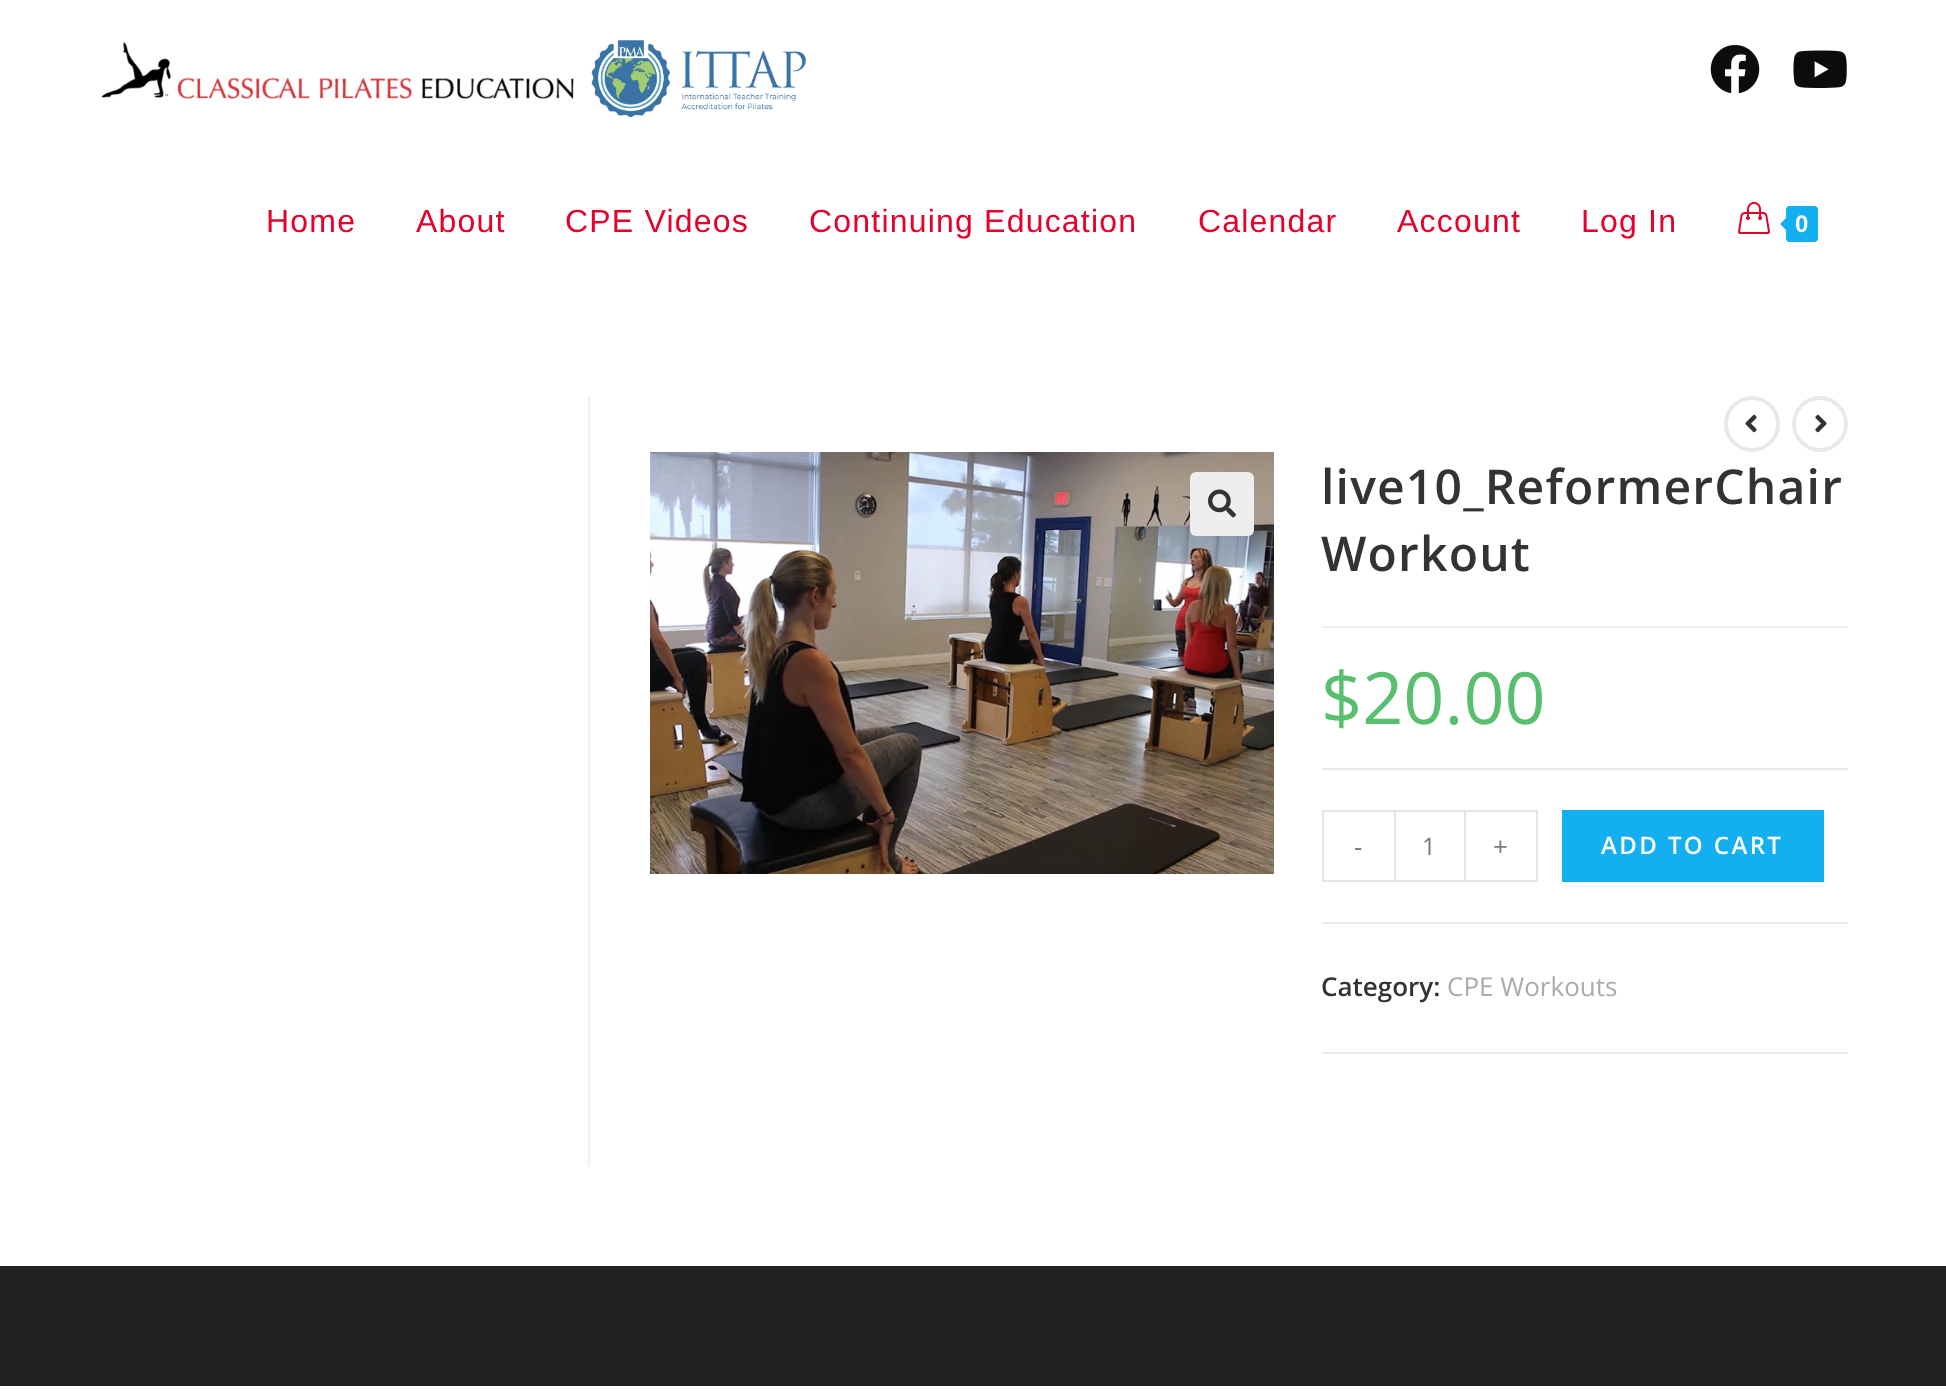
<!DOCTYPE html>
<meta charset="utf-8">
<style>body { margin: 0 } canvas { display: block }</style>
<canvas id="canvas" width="1946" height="1395"></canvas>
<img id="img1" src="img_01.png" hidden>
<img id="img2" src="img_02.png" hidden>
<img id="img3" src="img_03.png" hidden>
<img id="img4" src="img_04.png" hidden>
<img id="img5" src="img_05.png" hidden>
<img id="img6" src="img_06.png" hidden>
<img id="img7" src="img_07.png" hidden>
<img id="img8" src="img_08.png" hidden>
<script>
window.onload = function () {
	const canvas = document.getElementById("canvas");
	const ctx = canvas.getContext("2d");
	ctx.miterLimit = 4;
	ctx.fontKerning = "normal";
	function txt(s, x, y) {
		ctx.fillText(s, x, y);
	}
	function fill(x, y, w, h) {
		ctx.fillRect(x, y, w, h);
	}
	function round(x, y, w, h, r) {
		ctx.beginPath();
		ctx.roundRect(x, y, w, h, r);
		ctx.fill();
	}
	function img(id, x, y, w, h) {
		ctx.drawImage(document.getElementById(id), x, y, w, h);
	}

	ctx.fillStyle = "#FFFFFF";
	fill(0, 0, 1946, 1395);
	img("img1", 101, 40, 705, 78);
	img("img2", 1710, 45, 50, 49);
	img("img3", 1793, 50, 54, 38);
	img("img4", 1738, 202, 32, 32);
	ctx.fillStyle = "#13AFF0";
	round(1786, 206, 32, 36, 4);
	ctx.beginPath();
	ctx.moveTo(1790, 214);
	ctx.lineTo(1790, 234);
	ctx.lineTo(1780, 224);
	ctx.closePath();
	ctx.fill();
	ctx.fillStyle = "#F1F1F1";
	fill(588, 396, 2, 770);
	ctx.beginPath();
	ctx.arc(1752, 424, 26, 0, Math.PI * 2);
	ctx.strokeStyle = "#E9E9E9";
	ctx.lineWidth = 4;
	ctx.stroke();
	img("img5", 1745, 414, 12, 19);
	ctx.beginPath();
	ctx.arc(1820, 424, 26, 0, Math.PI * 2);
	ctx.stroke();
	img("img6", 1815, 414, 12, 19);
	img("img7", 650, 452, 624, 422);
	ctx.fillStyle = "#EEEEEE";
	round(1190, 472, 64, 64, 6);
	img("img8", 1208, 489, 28, 29);
	ctx.fillStyle = "#F1F1F1";
	fill(1322, 626, 526, 2);
	ctx.fillStyle = "#EAEAEA";
	fill(1322, 768, 526, 2);
	fill(1322, 922, 526, 2);
	ctx.fillStyle = "#E4E4E4";
	fill(1322, 810, 72, 2);
	fill(1322, 880, 72, 2);
	fill(1322, 810, 2, 72);
	ctx.strokeStyle = "#E4E4E4";
	ctx.lineWidth = 2;
	ctx.strokeRect(1395, 811, 70, 70);
	fill(1466, 810, 72, 2);
	fill(1536, 810, 2, 72);
	fill(1466, 880, 72, 2);
	ctx.fillStyle = "#13AFF0";
	fill(1562, 810, 262, 72);
	ctx.fillStyle = "#EAEAEA";
	fill(1322, 1052, 526, 2);
	ctx.fillStyle = "#222222";
	fill(0, 1266, 1946, 120);
	ctx.letterSpacing = "1.2px";
	ctx.font = "32px Liberation Sans";
	ctx.fillStyle = "#E5012B";
	txt("Home", 266, 232);
	txt("About", 416, 232);
	txt("CPE Videos", 565, 232);
	txt("Continuing Education", 809, 232);
	txt("Calendar", 1198, 232);
	txt("Account", 1397, 232);
	txt("Log In", 1581, 232);
	ctx.letterSpacing = "0px";
	ctx.font = "bold 24px Liberation Sans";
	ctx.fillStyle = "#FFFFFF";
	txt("0", 1795, 232);
	ctx.letterSpacing = "1.2px";
	ctx.font = "600 48px Open Sans";
	ctx.fillStyle = "#333333";
	txt("live10_ReformerChair", 1321, 504);
	txt("Workout", 1321, 571);
	ctx.letterSpacing = "0px";
	ctx.font = "72px Open Sans";
	ctx.fillStyle = "#57BF6D";
	txt("$20.00", 1321, 724);
	ctx.font = "26px Open Sans";
	ctx.fillStyle = "#777777";
	txt("-", 1354, 856);
	ctx.font = "24px Open Sans";
	txt("1", 1422, 855);
	ctx.font = "26px Open Sans";
	txt("+", 1493, 856);
	ctx.letterSpacing = "2.4px";
	ctx.font = "600 24px Open Sans";
	ctx.fillStyle = "#FFFFFF";
	txt("ADD TO CART", 1601, 854);
	ctx.letterSpacing = "0px";
	ctx.font = "600 26px Open Sans";
	ctx.fillStyle = "#333333";
	txt("Category:", 1321, 996);
	ctx.font = "26px Open Sans";
	ctx.fillStyle = "#ABABAB";
	txt("CPE Workouts", 1447, 996);
};
</script>
